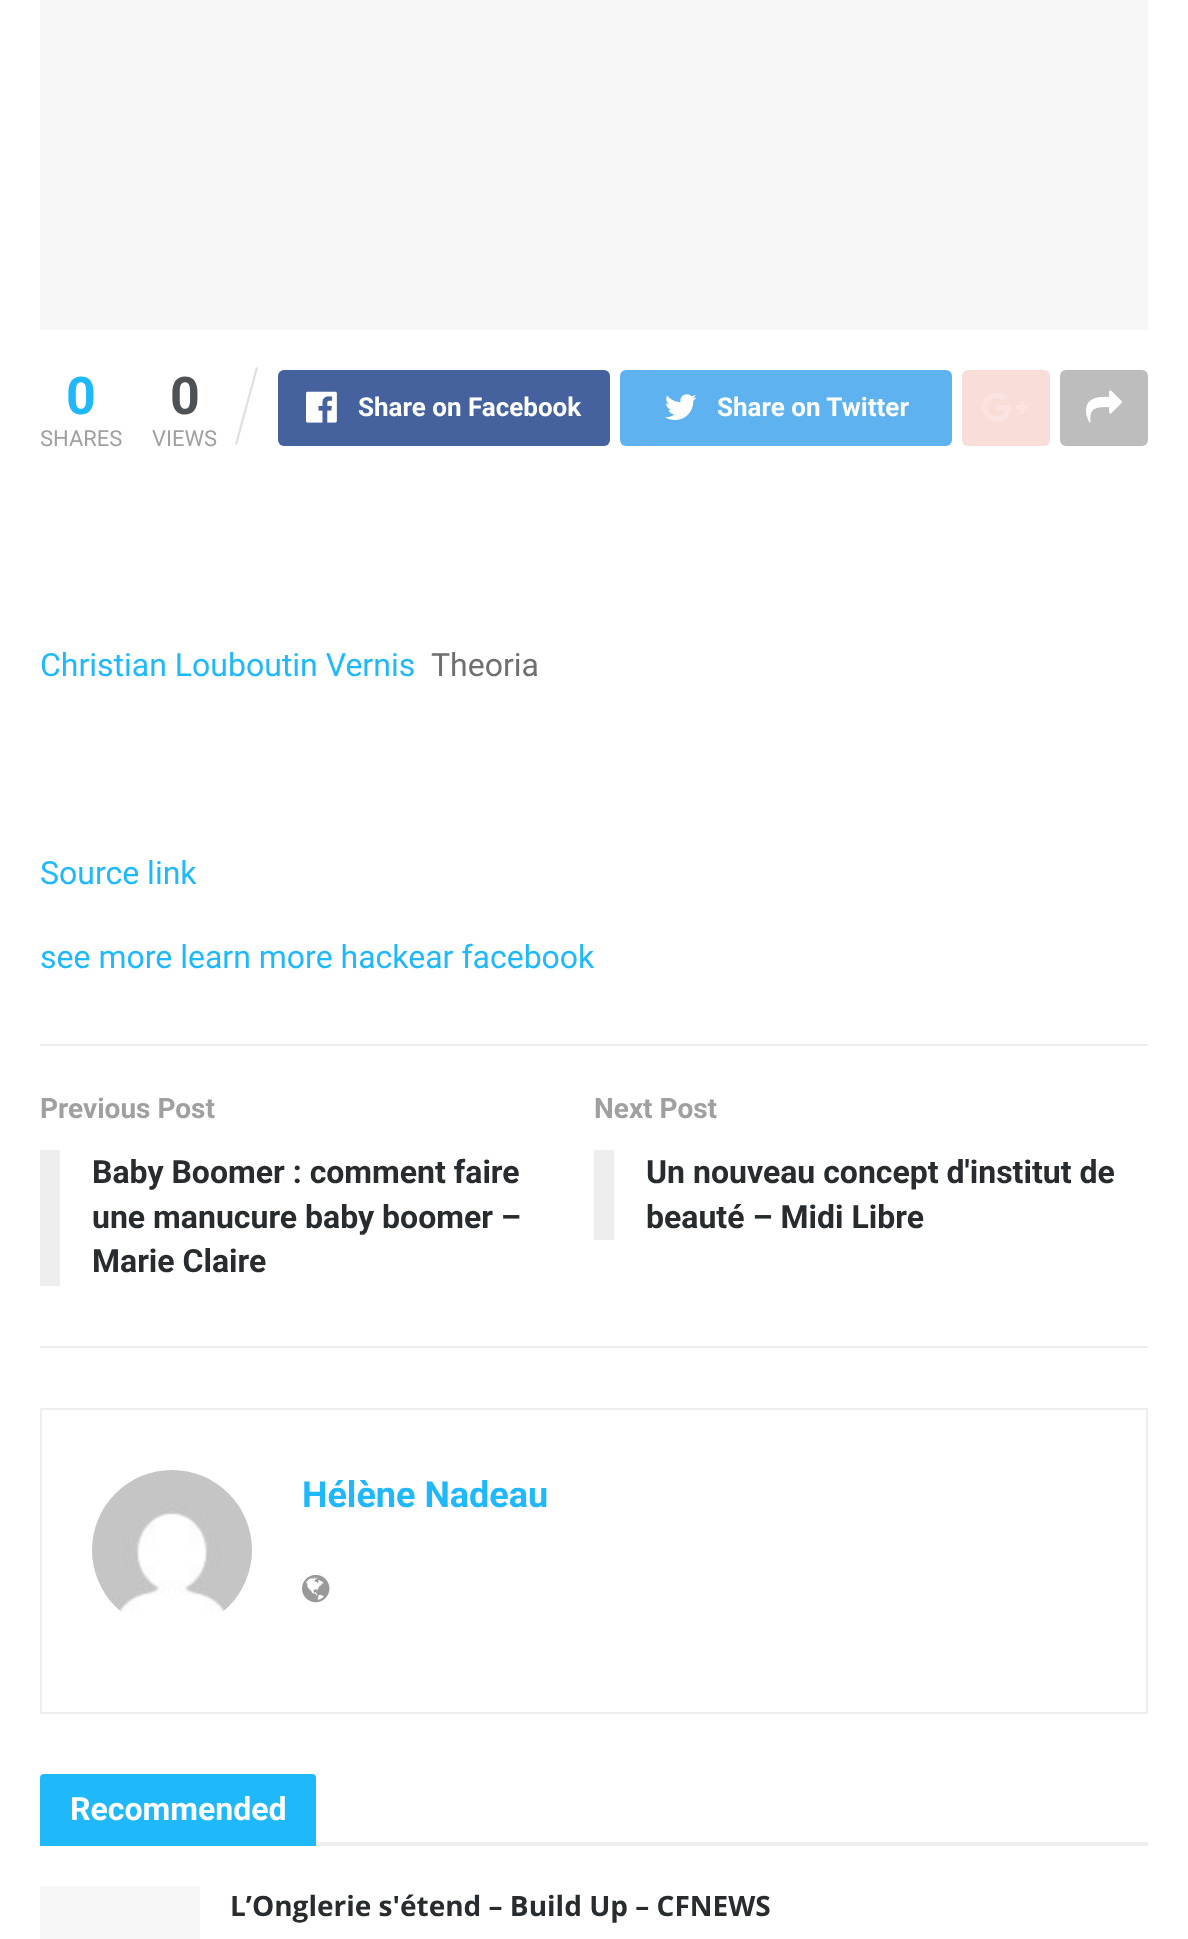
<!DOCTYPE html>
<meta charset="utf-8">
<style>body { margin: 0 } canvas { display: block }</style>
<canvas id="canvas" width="1188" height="1939"></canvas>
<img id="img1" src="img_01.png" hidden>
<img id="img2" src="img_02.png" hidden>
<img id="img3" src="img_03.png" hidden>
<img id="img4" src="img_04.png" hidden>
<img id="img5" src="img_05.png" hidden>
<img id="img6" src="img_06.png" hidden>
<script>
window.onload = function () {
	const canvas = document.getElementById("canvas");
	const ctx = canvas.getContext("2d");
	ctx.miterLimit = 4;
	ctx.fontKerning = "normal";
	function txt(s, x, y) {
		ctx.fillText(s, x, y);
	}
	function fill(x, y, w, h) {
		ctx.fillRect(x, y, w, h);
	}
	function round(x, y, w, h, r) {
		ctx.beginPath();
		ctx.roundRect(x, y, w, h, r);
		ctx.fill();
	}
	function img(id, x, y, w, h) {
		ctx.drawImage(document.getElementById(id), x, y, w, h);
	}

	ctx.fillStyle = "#FFFFFF";
	fill(0, 0, 1188, 1939);
	ctx.fillStyle = "#F7F7F7";
	fill(40, 0, 1108, 330);
	ctx.fillStyle = "#E0E0E0";
	ctx.beginPath();
	ctx.moveTo(256, 367);
	ctx.lineTo(258, 368);
	ctx.lineTo(237, 445);
	ctx.lineTo(235, 444);
	ctx.closePath();
	ctx.fill();
	ctx.fillStyle = "#45629F";
	round(278, 370, 332, 76, 6);
	img("img1", 306, 391, 31, 32);
	ctx.fillStyle = "#5EB2EF";
	round(620, 370, 332, 76, 6);
	img("img2", 665, 394, 32, 26);
	ctx.fillStyle = "#F9DDD9";
	round(962, 370, 88, 76, 6);
	img("img3", 982, 392, 46, 30);
	ctx.fillStyle = "#BDBDBD";
	round(1060, 370, 88, 76, 6);
	img("img4", 1086, 390, 36, 33);
	ctx.fillStyle = "#EEEEEE";
	fill(40, 1044, 1108, 2);
	fill(40, 1346, 1108, 2);
	fill(40, 1150, 20, 136);
	fill(594, 1150, 20, 90);
	ctx.strokeStyle = "#EEEEEE";
	ctx.lineWidth = 2;
	ctx.strokeRect(41, 1409, 1106, 304);
	img("img5", 92, 1470, 160, 142);
	img("img6", 302, 1574, 28, 29);
	fill(316, 1842, 832, 4);
	ctx.fillStyle = "#1FB9FB";
	ctx.beginPath();
	ctx.roundRect(40, 1774, 276, 72, [4, 4, 0, 0]);
	ctx.fill();
	ctx.fillStyle = "#F7F7F7";
	fill(40, 1886, 160, 53);
	ctx.font = "bold 52px Roboto";
	ctx.fillStyle = "#1FB9FB";
	txt("0", 66, 414);
	ctx.font = "22px Roboto";
	ctx.fillStyle = "#A0A0A0";
	txt("SHARES", 40, 446);
	ctx.font = "bold 52px Roboto";
	ctx.fillStyle = "#4F5254";
	txt("0", 170, 414);
	ctx.font = "22px Roboto";
	ctx.fillStyle = "#A0A0A0";
	txt("VIEWS", 152, 446);
	ctx.font = "bold 26px Roboto";
	ctx.fillStyle = "#FFFFFF";
	txt("Share on Facebook", 358, 416);
	txt("Share on Twitter", 717, 416);
	ctx.font = "32px Roboto";
	ctx.fillStyle = "#1FB9FB";
	txt("Christian Louboutin Vernis", 40, 676);
	ctx.fillStyle = "#6F6F6F";
	txt("Theoria", 431, 676);
	ctx.fillStyle = "#1FB9FB";
	txt("Source link", 40, 884);
	txt("see more learn more hackear facebook", 40, 968);
	ctx.font = "bold 28px Roboto";
	ctx.fillStyle = "#A0A0A0";
	txt("Previous Post", 40, 1118);
	ctx.font = "bold 32px Roboto";
	ctx.fillStyle = "#282C2E";
	txt("Baby Boomer : comment faire", 92, 1183);
	txt("une manucure baby boomer –", 92, 1228);
	txt("Marie Claire", 92, 1272);
	ctx.font = "bold 28px Roboto";
	ctx.fillStyle = "#A0A0A0";
	txt("Next Post", 594, 1118);
	ctx.font = "bold 32px Roboto";
	ctx.fillStyle = "#282C2E";
	txt("Un nouveau concept d'institut de", 646, 1183);
	txt("beauté – Midi Libre", 646, 1228);
	ctx.font = "bold 36px Roboto";
	ctx.fillStyle = "#1FB9FB";
	txt("Hélène Nadeau", 302, 1507);
	ctx.font = "bold 32px Roboto";
	ctx.fillStyle = "#FFFFFF";
	txt("Recommended", 70, 1820);
	ctx.font = "bold 28px Open Sans";
	ctx.fillStyle = "#282C2E";
	txt("L’Onglerie s'étend – Build Up – CFNEWS", 230, 1916);
};
</script>
